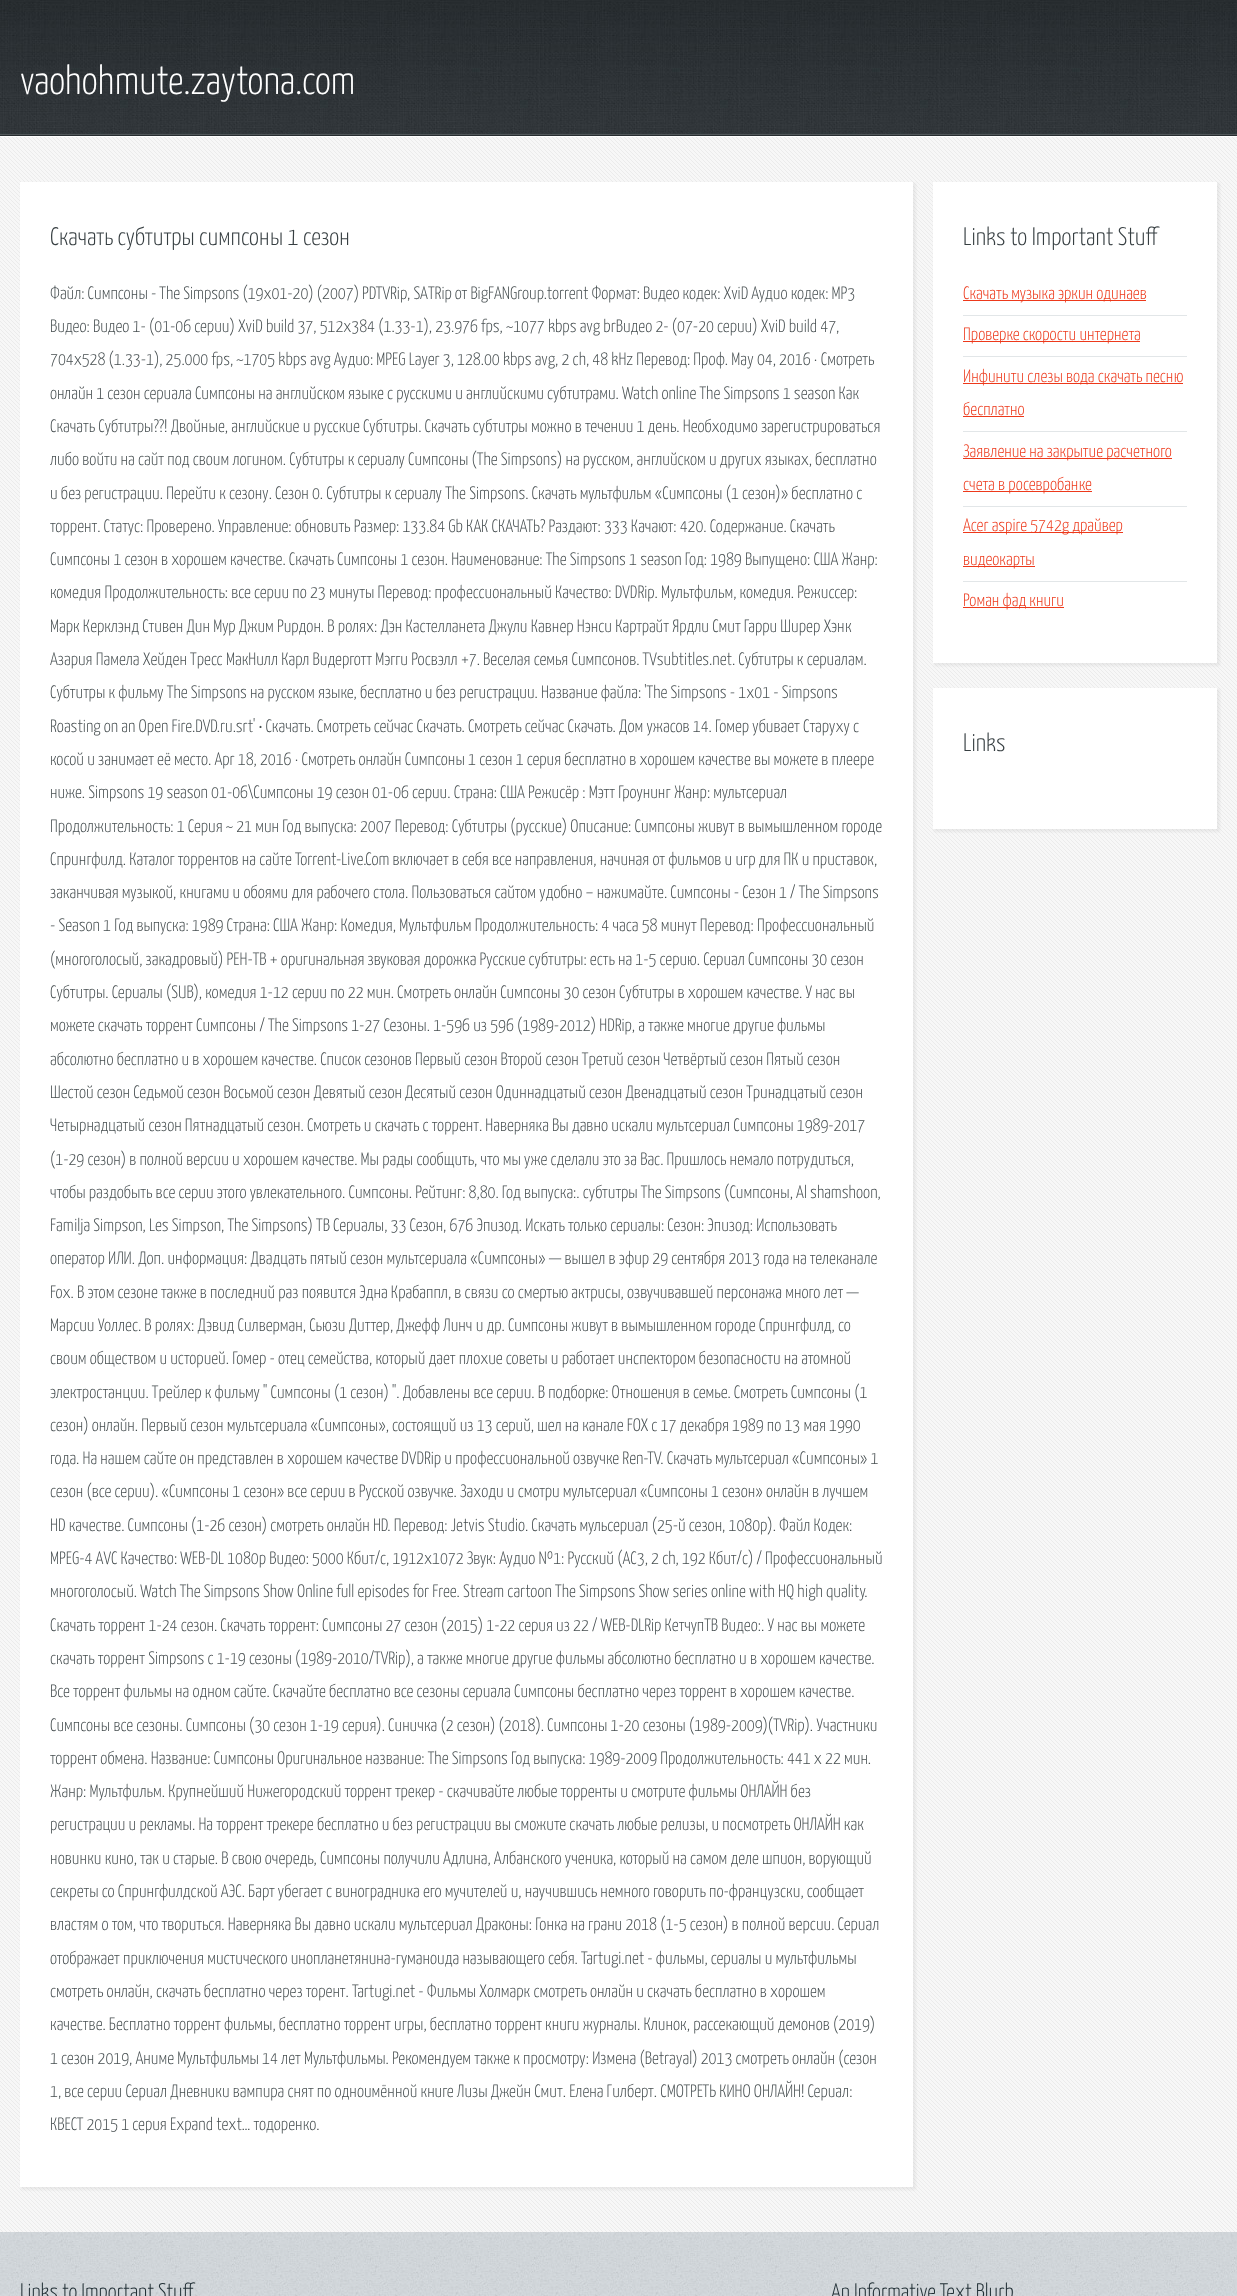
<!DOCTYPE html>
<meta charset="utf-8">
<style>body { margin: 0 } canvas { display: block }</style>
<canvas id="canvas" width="1237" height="2296"></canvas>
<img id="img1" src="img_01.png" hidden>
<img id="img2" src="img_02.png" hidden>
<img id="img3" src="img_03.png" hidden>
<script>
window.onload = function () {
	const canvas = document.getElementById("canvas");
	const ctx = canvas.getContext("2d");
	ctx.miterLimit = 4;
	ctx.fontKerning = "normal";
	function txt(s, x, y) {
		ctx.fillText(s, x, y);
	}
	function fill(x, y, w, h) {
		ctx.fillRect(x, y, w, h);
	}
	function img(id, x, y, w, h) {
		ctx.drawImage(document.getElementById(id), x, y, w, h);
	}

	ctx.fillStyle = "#FFFFFF";
	fill(0, 0, 1237, 2296);
	img("img1", 0, 2232, 1237, 64);
	img("img2", 0, 0, 1237, 134);
	ctx.fillStyle = "#51575A";
	fill(0, 134, 1237, 1);
	ctx.fillStyle = "#272D30";
	fill(0, 135, 1237, 1);
	ctx.fillStyle = "#F7F7F7";
	fill(0, 137, 1237, 2095);
	img("img3", 0, 137, 1237, 2095);
	ctx.fillStyle = "rgba(128, 128, 128, 0.1)";
	ctx.filter = "blur(1px)";
	ctx.beginPath();
	ctx.rect(21, 183, 895, 2007);
	ctx.fill();
	ctx.filter = "none";
	ctx.fillStyle = "#FFFFFF";
	fill(20, 182, 893, 2005);
	ctx.fillStyle = "rgba(128, 128, 128, 0.1)";
	ctx.filter = "blur(1px)";
	ctx.beginPath();
	ctx.rect(934, 183, 286, 483);
	ctx.fill();
	ctx.filter = "none";
	ctx.fillStyle = "#FFFFFF";
	fill(933, 182, 284, 481);
	ctx.fillStyle = "#E2E6E8";
	fill(963, 315, 224, 1);
	ctx.fillStyle = "#ED391B";
	fill(963, 300, 183, 1);
	ctx.fillStyle = "#E2E6E8";
	fill(963, 356, 224, 1);
	ctx.fillStyle = "#ED391B";
	fill(963, 341, 177, 1);
	ctx.fillStyle = "#E2E6E8";
	fill(963, 431, 224, 1);
	ctx.fillStyle = "#ED391B";
	fill(963, 383, 220, 1);
	fill(963, 416, 61, 1);
	ctx.fillStyle = "#E2E6E8";
	fill(963, 506, 224, 1);
	ctx.fillStyle = "#ED391B";
	fill(963, 458, 209, 1);
	fill(963, 491, 129, 1);
	ctx.fillStyle = "#E2E6E8";
	fill(963, 581, 224, 1);
	ctx.fillStyle = "#ED391B";
	fill(963, 532, 160, 1);
	fill(963, 566, 72, 1);
	fill(963, 607, 101, 1);
	ctx.fillStyle = "rgba(128, 128, 128, 0.1)";
	ctx.filter = "blur(1px)";
	ctx.beginPath();
	ctx.rect(934, 689, 286, 143);
	ctx.fill();
	ctx.filter = "none";
	ctx.fillStyle = "#FFFFFF";
	fill(933, 688, 284, 141);
	ctx.font = "300 40.5px Yanone Kaffeesatz";
	txt("vaohohmute.zaytona.com", 20, 94);
	ctx.font = "300 25.25px Yanone Kaffeesatz";
	ctx.fillStyle = "#373F42";
	txt("Скачать субтитры симпсоны 1 сезон", 50, 245);
	ctx.wordSpacing = "-0.1px";
	ctx.font = "300 18px Yanone Kaffeesatz";
	ctx.fillStyle = "#474F51";
	txt("Файл: Симпсоны - The Simpsons (19x01-20) (2007) PDTVRip, SATRip от BigFANGroup.torrent Формат: Видео кодек: XviD Аудио кодек: MP3", 50, 299);
	ctx.wordSpacing = "0px";
	txt("Видео: Видео 1- (01-06 серии) XviD build 37, 512x384 (1.33-1), 23.976 fps, ~1077 kbps avg brВидео 2- (07-20 серии) XviD build 47,", 50, 332);
	txt("704x528 (1.33-1), 25.000 fps, ~1705 kbps avg Аудио: MPEG Layer 3, 128.00 kbps avg, 2 ch, 48 kHz Перевод: Проф. May 04, 2016 · Смотреть", 50, 365);
	txt("онлайн 1 сезон сериала Симпсоны на английском языке с русскими и английскими субтитрами. Watch online The Simpsons 1 season Как", 50, 399);
	txt("Скачать Субтитры??! Двойные, английские и русские Субтитры. Скачать субтитры можно в течении 1 день. Необходимо зарегистрироваться", 50, 432);
	txt("либо войти на сайт под своим логином. Субтитры к сериалу Симпсоны (The Simpsons) на русском, английском и других языках, бесплатно", 50, 465);
	txt("и без регистрации. Перейти к сезону. Сезон 0. Субтитры к сериалу The Simpsons. Скачать мультфильм «Симпсоны (1 сезон)» бесплатно c", 50, 499);
	txt("торрент. Статус: Проверено. Управление: обновить Размер: 133.84 Gb КАК СКАЧАТЬ? Раздают: 333 Качают: 420. Содержание. Скачать", 50, 532);
	txt("Симпсоны 1 сезон в хорошем качестве. Скачать Симпсоны 1 сезон. Наименование: The Simpsons 1 season Год: 1989 Выпущено: США Жанр:", 50, 565);
	txt("комедия Продолжительность: все серии по 23 минуты Перевод: профессиональный Качество: DVDRip. Мультфильм, комедия. Режиссер:", 50, 598);
	txt("Марк Керклэнд Стивен Дин Мур Джим Рирдон. В ролях: Дэн Кастелланета Джули Кавнер Нэнси Картрайт Ярдли Смит Гарри Ширер Хэнк", 50, 632);
	txt("Азария Памела Хейден Тресс МакНилл Карл Видерготт Мэгги Росвэлл +7. Веселая семья Симпсонов. TVsubtitles.net. Субтитры к сериалам.", 50, 665);
	txt("Субтитры к фильму The Simpsons на русском языке, бесплатно и без регистрации. Название файла: 'The Simpsons - 1x01 - Simpsons", 50, 698);
	txt("Roasting on an Open Fire.DVD.ru.srt' • Скачать. Смотреть сейчас Скачать. Смотреть сейчас Скачать. Дом ужасов 14. Гомер убивает Старуху с", 50, 732);
	txt("косой и занимает её место. Apr 18, 2016 · Смотреть онлайн Симпсоны 1 сезон 1 серия бесплатно в хорошем качестве вы можете в плеере", 50, 765);
	txt("ниже. Simpsons 19 season 01-06\\Симпсоны 19 сезон 01-06 серии. Страна: США Режисёр : Мэтт Гроунинг Жанр: мультсериал", 50, 798);
	txt("Продолжительность: 1 Серия ~ 21 мин Год выпуска: 2007 Перевод: Субтитры (русские) Описание: Симпсоны живут в вымышленном городе", 50, 832);
	txt("Спрингфилд. Каталог торрентов на сайте Torrent-Live.Com включает в себя все направления, начиная от фильмов и игр для ПК и приставок,", 50, 865);
	txt("заканчивая музыкой, книгами и обоями для рабочего стола. Пользоваться сайтом удобно – нажимайте. Симпсоны - Сезон 1 / The Simpsons", 50, 898);
	txt("- Season 1 Год выпуска: 1989 Страна: США Жанр: Комедия, Мультфильм Продолжительность: 4 часа 58 минут Перевод: Профессиональный", 50, 931);
	txt("(многоголосый, закадровый) РЕН-ТВ + оригинальная звуковая дорожка Русские субтитры: есть на 1-5 серию. Сериал Симпсоны 30 сезон", 50, 965);
	txt("Субтитры. Сериалы (SUB), комедия 1-12 серии по 22 мин. Смотреть онлайн Симпсоны 30 сезон Субтитры в хорошем качестве. У нас вы", 50, 998);
	txt("можете скачать торрент Симпсоны / The Simpsons 1-27 Сезоны. 1-596 из 596 (1989-2012) HDRip, а также многие другие фильмы", 50, 1031);
	txt("абсолютно бесплатно и в хорошем качестве. Список сезонов Первый сезон Второй сезон Третий сезон Четвёртый сезон Пятый сезон", 50, 1065);
	txt("Шестой сезон Седьмой сезон Восьмой сезон Девятый сезон Десятый сезон Одиннадцатый сезон Двенадцатый сезон Тринадцатый сезон", 50, 1098);
	txt("Четырнадцатый сезон Пятнадцатый сезон. Смотреть и скачать с торрент. Наверняка Вы давно искали мультсериал Симпсоны 1989-2017", 50, 1131);
	txt("(1-29 сезон) в полной версии и хорошем качестве. Мы рады сообщить, что мы уже сделали это за Вас. Пришлось немало потрудиться,", 50, 1165);
	txt("чтобы раздобыть все серии этого увлекательного. Симпсоны. Рейтинг: 8,80. Год выпуска:. субтитры The Simpsons (Симпсоны, Al shamshoon,", 50, 1198);
	txt("Familja Simpson, Les Simpson, The Simpsons) ТВ Сериалы, 33 Сезон, 676 Эпизод. Искать только сериалы: Сезон: Эпизод: Использовать", 50, 1231);
	txt("оператор ИЛИ. Доп. информация: Двадцать пятый сезон мультсериала «Симпсоны» — вышел в эфир 29 сентября 2013 года на телеканале", 50, 1264);
	txt("Fox. В этом сезоне также в последний раз появится Эдна Крабаппл, в связи со смертью актрисы, озвучивавшей персонажа много лет —", 50, 1298);
	txt("Марсии Уоллес. В ролях: Дэвид Силверман, Сьюзи Диттер, Джефф Линч и др. Симпсоны живут в вымышленном городе Спрингфилд, со", 50, 1331);
	txt("своим обществом и историей. Гомер - отец семейства, который дает плохие советы и работает инспектором безопасности на атомной", 50, 1364);
	txt("электростанции. Трейлер к фильму \" Симпсоны (1 сезон) \". Добавлены все серии. В подборке: Отношения в семье. Смотреть Симпсоны (1", 50, 1398);
	txt("сезон) онлайн. Первый сезон мультсериала «Симпсоны», состоящий из 13 серий, шел на канале FOX с 17 декабря 1989 по 13 мая 1990", 50, 1431);
	txt("года. На нашем сайте он представлен в хорошем качестве DVDRip и профессиональной озвучке Ren-TV. Скачать мультсериал «Симпсоны» 1", 50, 1464);
	txt("сезон (все серии). «Симпсоны 1 сезон» все серии в Русской озвучке. Заходи и смотри мультсериал «Симпсоны 1 сезон» онлайн в лучшем", 50, 1497);
	txt("HD качестве. Симпсоны (1-26 сезон) смотреть онлайн HD. Перевод: Jetvis Studio. Скачать мульсериал (25-й сезон, 1080p). Файл Кодек:", 50, 1531);
	txt("MPEG-4 AVC Качество: WEB-DL 1080p Видео: 5000 Кбит/с, 1912x1072 Звук: Аудио №1: Русский (AC3, 2 ch, 192 Кбит/с) / Профессиональный", 50, 1564);
	txt("многоголосый. Watch The Simpsons Show Online full episodes for Free. Stream cartoon The Simpsons Show series online with HQ high quality.", 50, 1597);
	txt("Скачать торрент 1-24 сезон. Скачать торрент: Симпсоны 27 сезон (2015) 1-22 серия из 22 / WEB-DLRip КетчупТВ Видео:. У нас вы можете", 50, 1631);
	txt("скачать торрент Simpsons с 1-19 сезоны (1989-2010/TVRip), а также многие другие фильмы абсолютно бесплатно и в хорошем качестве.", 50, 1664);
	txt("Все торрент фильмы на одном сайте. Скачайте бесплатно все сезоны сериала Симпсоны бесплатно через торрент в хорошем качестве.", 50, 1697);
	txt("Симпсоны все сезоны. Симпсоны (30 сезон 1-19 серия). Синичка (2 сезон) (2018). Симпсоны 1-20 сезоны (1989-2009)(TVRip). Участники", 50, 1731);
	txt("торрент обмена. Название: Симпсоны Оригинальное название: The Simpsons Год выпуска: 1989-2009 Продолжительность: 441 х 22 мин.", 50, 1764);
	txt("Жанр: Мультфильм. Крупнейший Нижегородский торрент трекер - скачивайте любые торренты и смотрите фильмы ОНЛАЙН без", 50, 1797);
	txt("регистрации и рекламы. На торрент трекере бесплатно и без регистрации вы сможите скачать любые релизы, и посмотреть ОНЛАЙН как", 50, 1830);
	txt("новинки кино, так и старые. В свою очередь, Симпсоны получили Адлина, Албанского ученика, который на самом деле шпион, ворующий", 50, 1864);
	txt("секреты со Спрингфилдской АЭС. Барт убегает с виноградника его мучителей и, научившись немного говорить по-французски, сообщает", 50, 1897);
	txt("властям о том, что твориться. Наверняка Вы давно искали мультсериал Драконы: Гонка на грани 2018 (1-5 сезон) в полной версии. Сериал", 50, 1930);
	txt("отображает приключения мистического инопланетянина-гуманоида называющего себя. Tartugi.net - фильмы, сериалы и мультфильмы", 50, 1964);
	txt("смотреть онлайн, скачать бесплатно через торент. Tartugi.net - Фильмы Холмарк смотреть онлайн и скачать бесплатно в хорошем", 50, 1997);
	txt("качестве. Бесплатно торрент фильмы, бесплатно торрент игры, бесплатно торрент книги журналы. Клинок, рассекающий демонов (2019)", 50, 2030);
	txt("1 сезон 2019, Аниме Мультфильмы 14 лет Мультфильмы. Рекомендуем также к просмотру: Измена (Betrayal) 2013 смотреть онлайн (сезон", 50, 2064);
	txt("1, все серии Сериал Дневники вампира снят по одноимённой книге Лизы Джейн Смит. Елена Гилберт. СМОТРЕТЬ КИНО ОНЛАЙН! Сериал:", 50, 2097);
	txt("КВЕСТ 2015 1 серия Expand text… тодоренко.", 50, 2130);
	ctx.font = "300 25.25px Yanone Kaffeesatz";
	ctx.fillStyle = "#373F42";
	txt("Links to Important Stuff", 963, 245);
	ctx.font = "300 18px Yanone Kaffeesatz";
	ctx.fillStyle = "#ED391B";
	txt("Скачать музыка эркин одинаев", 963, 299);
	txt("Проверке скорости интернета", 963, 340);
	txt("Инфинити слезы вода скачать песню", 963, 382);
	txt("бесплатно", 963, 415);
	txt("Заявление на закрытие расчетного", 963, 457);
	txt("счета в росевробанке", 963, 490);
	txt("Acer aspire 5742g драйвер", 963, 531);
	txt("видеокарты", 963, 565);
	txt("Роман фад книги", 963, 606);
	ctx.font = "300 25.25px Yanone Kaffeesatz";
	ctx.fillStyle = "#373F42";
	txt("Links", 963, 751);
	ctx.font = "300 22.5px Yanone Kaffeesatz";
	ctx.fillStyle = "#212F35";
	txt("Links to Important Stuff", 20, 2299);
	txt("An Informative Text Blurb", 831, 2299);
};
</script>
